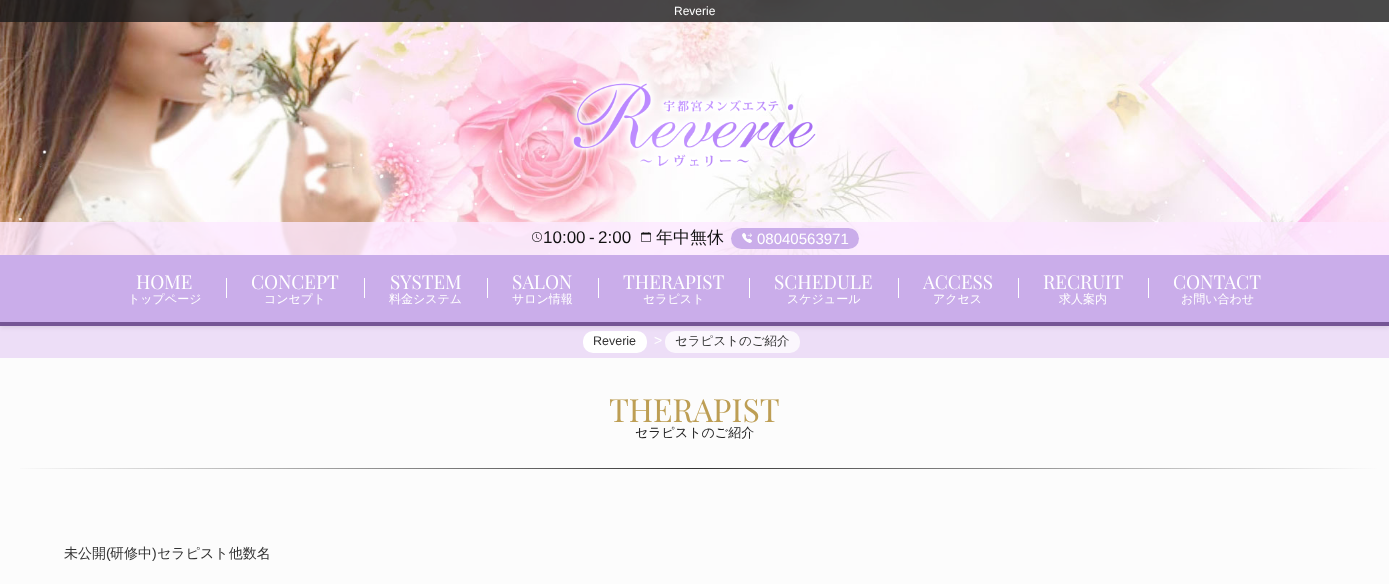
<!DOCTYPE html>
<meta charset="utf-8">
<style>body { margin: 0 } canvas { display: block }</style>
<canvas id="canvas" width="1389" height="584"></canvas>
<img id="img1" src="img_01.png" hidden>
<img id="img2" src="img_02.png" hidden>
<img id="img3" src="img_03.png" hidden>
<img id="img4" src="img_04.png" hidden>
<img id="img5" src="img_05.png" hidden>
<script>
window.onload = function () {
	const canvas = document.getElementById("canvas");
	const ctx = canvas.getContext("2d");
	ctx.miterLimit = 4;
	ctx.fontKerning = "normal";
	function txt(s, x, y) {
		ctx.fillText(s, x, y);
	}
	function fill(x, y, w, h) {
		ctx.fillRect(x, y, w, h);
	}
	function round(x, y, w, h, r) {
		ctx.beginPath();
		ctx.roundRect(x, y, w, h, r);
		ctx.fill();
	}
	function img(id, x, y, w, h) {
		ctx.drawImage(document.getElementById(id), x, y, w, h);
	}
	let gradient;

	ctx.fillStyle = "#FCFCFC";
	fill(0, 0, 1389, 584);
	ctx.fillStyle = "#EDDEF7";
	fill(0, 326, 1389, 32);
	ctx.fillStyle = "#FFFFFF";
	round(583, 331, 64, 22, 10);
	ctx.fillStyle = "#FBF7FD";
	round(665, 331, 135, 22, 10);
	ctx.fillStyle = "rgba(0, 0, 0, 0.1)";
	ctx.filter = "blur(2.5px)";
	ctx.beginPath();
	ctx.rect(0, 1, 1389, 326);
	ctx.fill();
	ctx.filter = "none";
	img("img1", 0, 0, 1389, 255);
	ctx.fillStyle = "rgba(26, 26, 26, 0.8)";
	fill(0, 0, 1389, 22);
	img("img2", 567, 78, 250, 89);
	ctx.fillStyle = "rgba(252, 232, 255, 0.8)";
	fill(0, 222, 1389, 33);
	img("img3", 532, 232, 10, 10);
	img("img4", 641, 232, 10, 10);
	ctx.fillStyle = "#CAADEA";
	round(731, 228, 128, 21, 10.5);
	img("img5", 742, 233, 10, 10);
	fill(0, 255, 1389, 67);
	ctx.fillStyle = "#FFFFFF";
	fill(226, 278, 1, 20);
	fill(364, 278, 1, 20);
	fill(487, 278, 1, 20);
	fill(598, 278, 1, 20);
	fill(749, 278, 1, 20);
	fill(898, 278, 1, 20);
	fill(1018, 278, 1, 20);
	fill(1148, 278, 1, 20);
	ctx.fillStyle = "#755595";
	fill(0, 322, 1389, 4);
	gradient = ctx.createLinearGradient(11, 469, 1379, 468);
	gradient.addColorStop(0, "#FCFCFC");
	gradient.addColorStop(0.5, "#333333");
	gradient.addColorStop(1, "#FCFCFC");
	ctx.fillStyle = gradient;
	fill(20, 468, 1359, 1);
	ctx.font = "12px Liberation Sans";
	ctx.fillStyle = "#FFFFFF";
	txt("Reverie", 674, 15);
	ctx.font = "17px Liberation Sans";
	ctx.fillStyle = "#111111";
	txt("10:00", 543, 243);
	txt("-", 589, 243);
	txt("2:00", 598, 243);
	ctx.font = "500 17px WenQuanYi Zen Hei";
	txt("年中無休", 656, 243);
	ctx.font = "15px Liberation Sans";
	ctx.fillStyle = "#FFFFFF";
	txt("08040563971", 757, 244);
	ctx.font = "19px Playfair Display";
	txt("HOME", 136, 289);
	ctx.font = "500 12px WenQuanYi Zen Hei";
	txt("トップページ", 128, 303);
	ctx.font = "19px Playfair Display";
	txt("CONCEPT", 251, 289);
	ctx.font = "500 12px WenQuanYi Zen Hei";
	txt("コンセプト", 264, 303);
	ctx.font = "19px Playfair Display";
	txt("SYSTEM", 390, 289);
	ctx.font = "500 12px WenQuanYi Zen Hei";
	txt("料金システム", 389, 303);
	ctx.font = "19px Playfair Display";
	txt("SALON", 512, 289);
	ctx.font = "500 12px WenQuanYi Zen Hei";
	txt("サロン情報", 512, 303);
	ctx.font = "19px Playfair Display";
	txt("THERAPIST", 623, 289);
	ctx.font = "500 12px WenQuanYi Zen Hei";
	txt("セラピスト", 643, 303);
	ctx.font = "19px Playfair Display";
	txt("SCHEDULE", 774, 289);
	ctx.font = "500 12px WenQuanYi Zen Hei";
	txt("スケジュール", 787, 303);
	ctx.font = "19px Playfair Display";
	txt("ACCESS", 923, 289);
	ctx.font = "500 12px WenQuanYi Zen Hei";
	txt("アクセス", 933, 303);
	ctx.font = "19px Playfair Display";
	txt("RECRUIT", 1043, 289);
	ctx.font = "500 12px WenQuanYi Zen Hei";
	txt("求人案内", 1059, 303);
	ctx.font = "19px Playfair Display";
	txt("CONTACT", 1173, 289);
	ctx.font = "500 12px WenQuanYi Zen Hei";
	txt("お問い合わせ", 1181, 303);
	ctx.font = "12.5px Liberation Sans";
	ctx.fillStyle = "#333333";
	txt("Reverie", 593, 345);
	ctx.font = "14px Liberation Sans";
	ctx.fillStyle = "#FFFFFF";
	txt(">", 654, 345);
	ctx.font = "500 12.5px WenQuanYi Zen Hei";
	ctx.fillStyle = "#333333";
	txt("セラピストのご紹介", 675, 345);
	ctx.font = "32px Playfair Display";
	ctx.fillStyle = "#BD9E54";
	txt("THERAPIST", 609, 422);
	ctx.font = "500 13px WenQuanYi Zen Hei";
	ctx.fillStyle = "#222222";
	txt("セラピストのご紹介", 635, 437);
	ctx.font = "500 14px WenQuanYi Zen Hei";
	ctx.fillStyle = "#333333";
	txt("未公開", 64, 558);
	ctx.font = "14px Liberation Sans";
	txt("(", 106, 558);
	ctx.font = "500 14px WenQuanYi Zen Hei";
	txt("研修中", 110, 558);
	ctx.font = "14px Liberation Sans";
	txt(")", 152, 558);
	ctx.font = "500 14px WenQuanYi Zen Hei";
	txt("セラピスト他数名", 157, 558);
};
</script>
